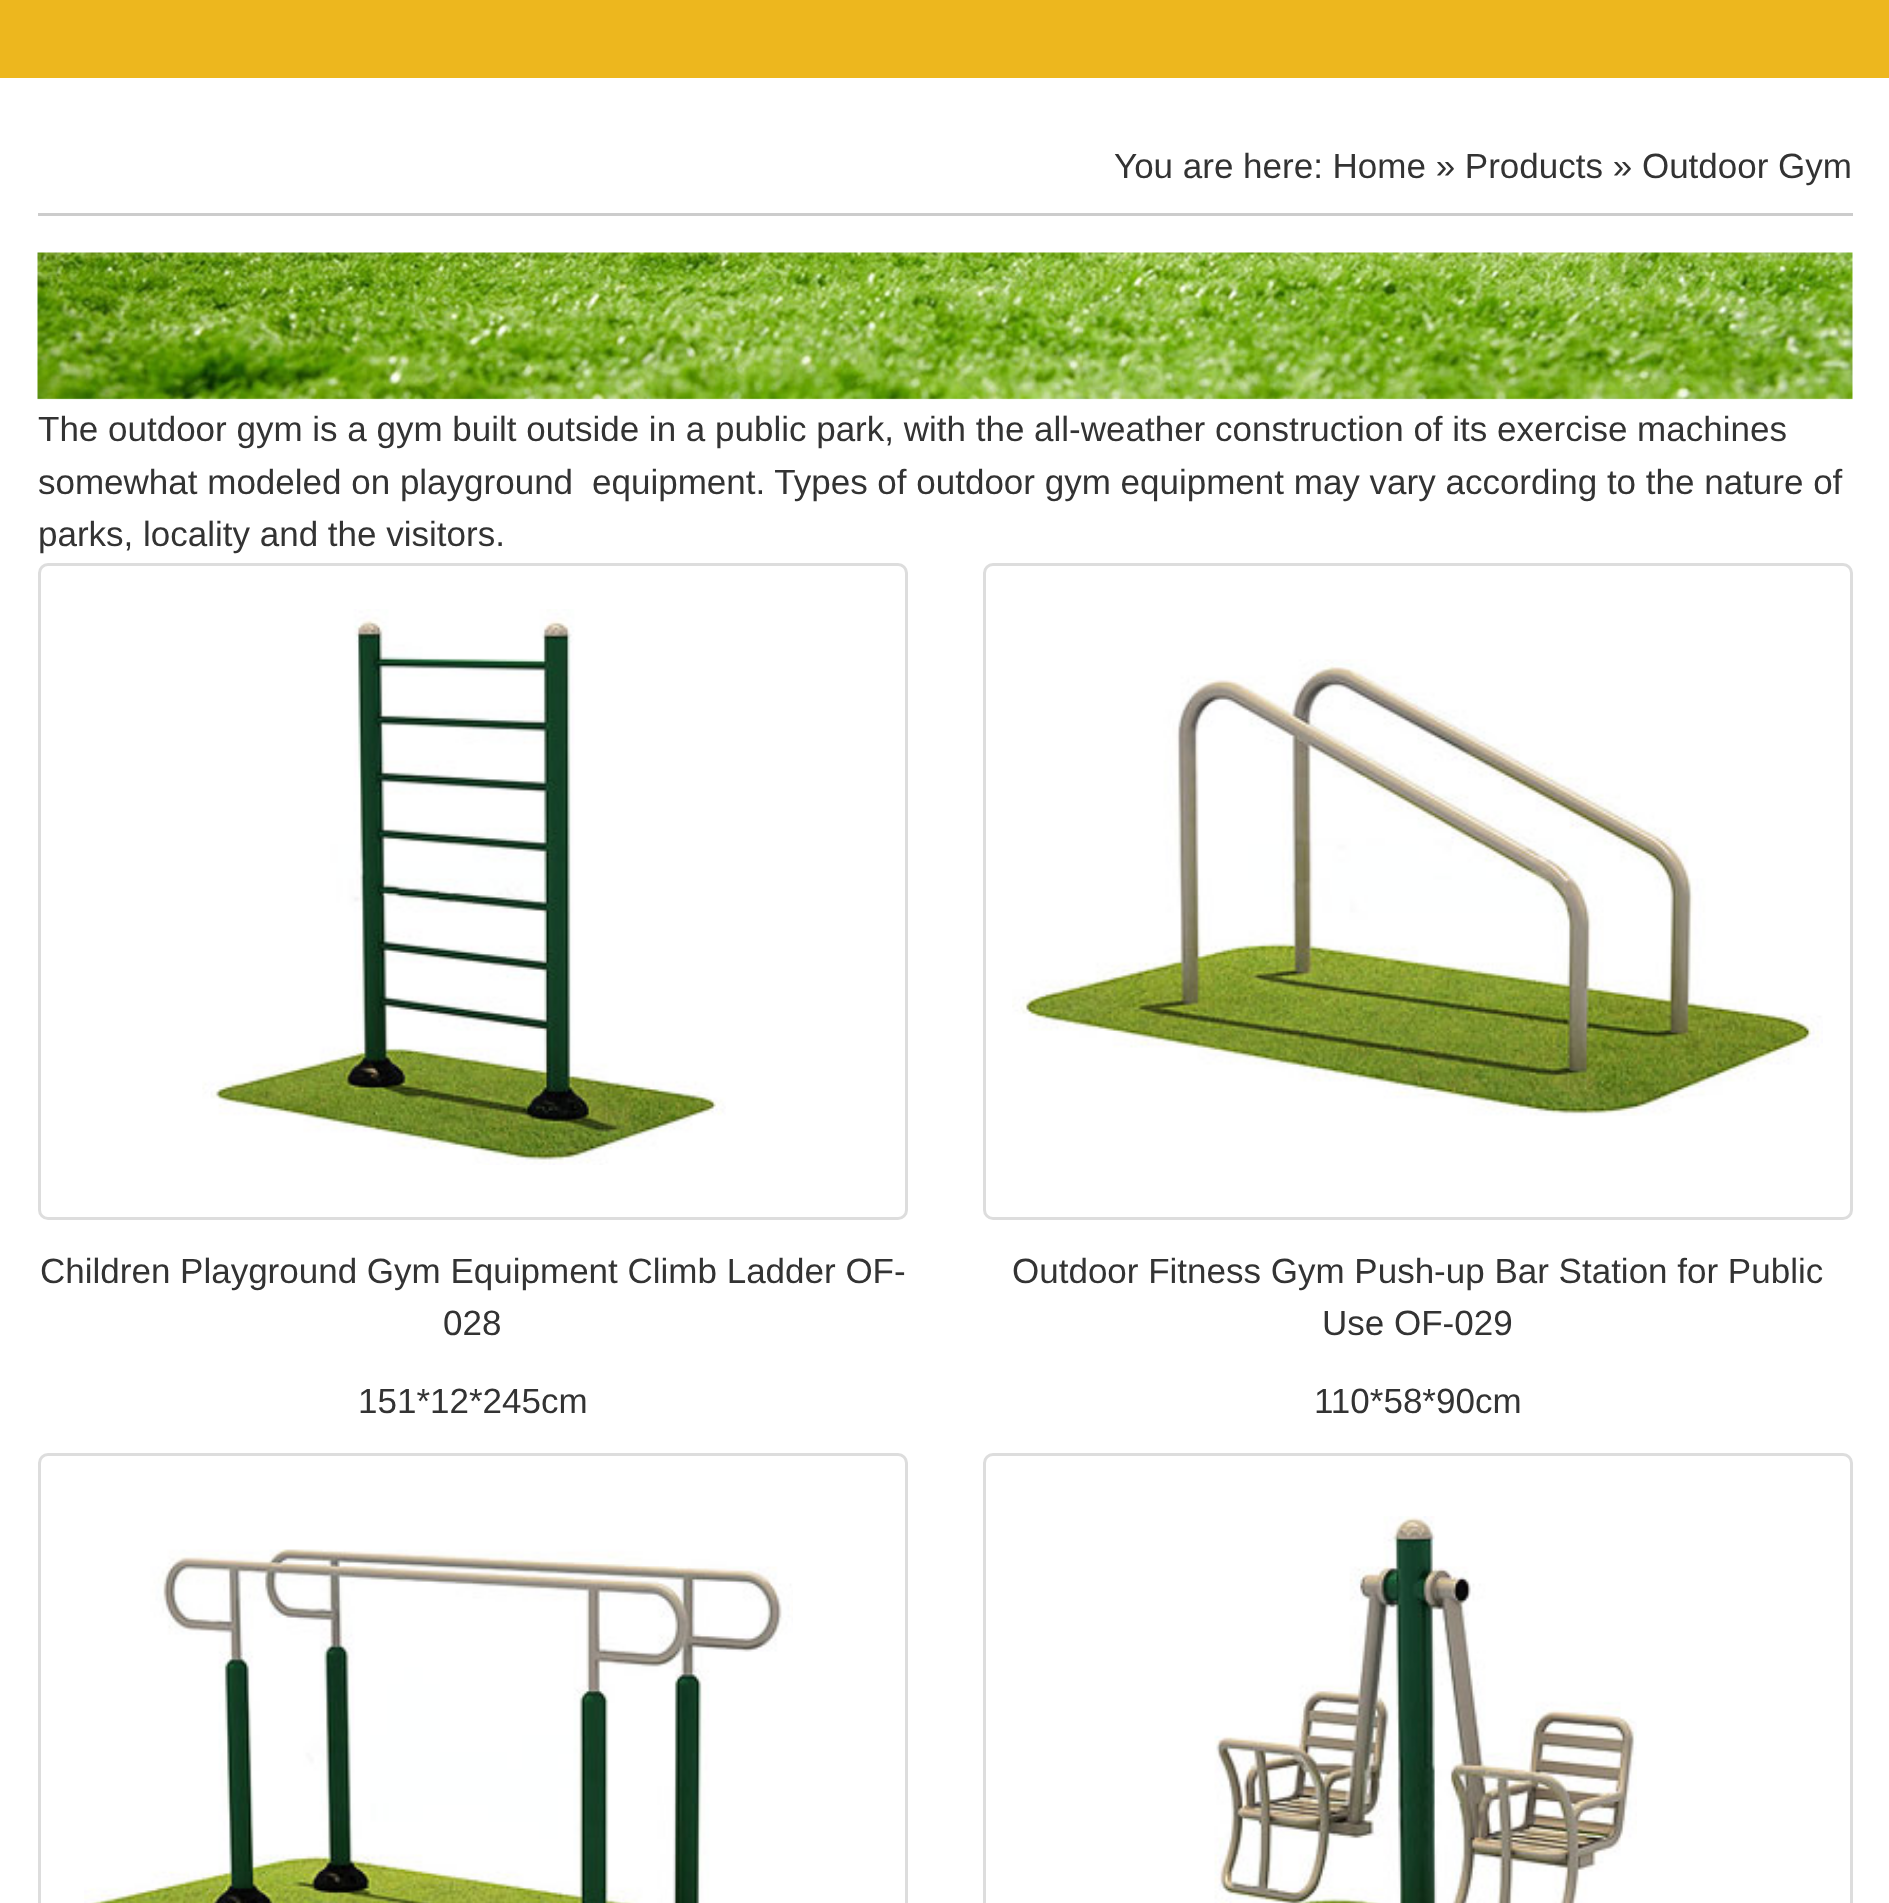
<!DOCTYPE html>
<meta charset="utf-8">
<style>body { margin: 0 } canvas { display: block }</style>
<canvas id="canvas" width="1889" height="1903"></canvas>
<img id="img1" src="img_01.png" hidden>
<img id="img2" src="img_02.png" hidden>
<img id="img3" src="img_03.png" hidden>
<img id="img4" src="img_04.png" hidden>
<img id="img5" src="img_05.png" hidden>
<script>
window.onload = function () {
	const canvas = document.getElementById("canvas");
	const ctx = canvas.getContext("2d");
	ctx.miterLimit = 4;
	ctx.fontKerning = "normal";
	function txt(s, x, y) {
		ctx.fillText(s, x, y);
	}
	function fill(x, y, w, h) {
		ctx.fillRect(x, y, w, h);
	}
	function img(id, x, y, w, h) {
		ctx.drawImage(document.getElementById(id), x, y, w, h);
	}

	ctx.fillStyle = "#FFFFFF";
	fill(0, 0, 1889, 1903);
	ctx.fillStyle = "#EDB71E";
	fill(0, 0, 1889, 78);
	ctx.fillStyle = "#CCCCCC";
	fill(38, 213, 1815, 3);
	img("img1", 37, 252, 1816, 148);
	ctx.beginPath();
	ctx.roundRect(39.5, 564.5, 867, 654, 8.5);
	ctx.strokeStyle = "#DDDDDD";
	ctx.lineWidth = 3;
	ctx.stroke();
	img("img2", 202, 609, 524, 556);
	ctx.beginPath();
	ctx.roundRect(984.5, 564.5, 867, 654, 8.5);
	ctx.stroke();
	img("img3", 1012, 659, 811, 457);
	ctx.beginPath();
	ctx.roundRect(39.5, 1454.5, 867, 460, 8.5);
	ctx.stroke();
	img("img4", 84, 1549, 709, 354);
	ctx.beginPath();
	ctx.roundRect(984.5, 1454.5, 867, 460, 8.5);
	ctx.stroke();
	img("img5", 1214, 1516, 423, 387);
	ctx.font = "35px Liberation Sans";
	ctx.fillStyle = "#333333";
	txt("You are here: Home » Products » Outdoor Gym", 1114, 178);
	txt("The outdoor gym is a gym built outside in a public park, with the all-weather construction of its exercise machines", 38, 441);
	txt("somewhat modeled on playground", 38, 494);
	txt("equipment. Types of outdoor gym equipment may vary according to the nature of", 592, 494);
	txt("parks, locality and the visitors.", 38, 546);
	txt("Children Playground Gym Equipment Climb Ladder OF-", 40, 1283);
	txt("028", 443, 1335);
	txt("151*12*245cm", 358, 1413);
	txt("Outdoor Fitness Gym Push-up Bar Station for Public", 1012, 1283);
	txt("Use OF-029", 1322, 1335);
	txt("110*58*90cm", 1314, 1413);
};
</script>
